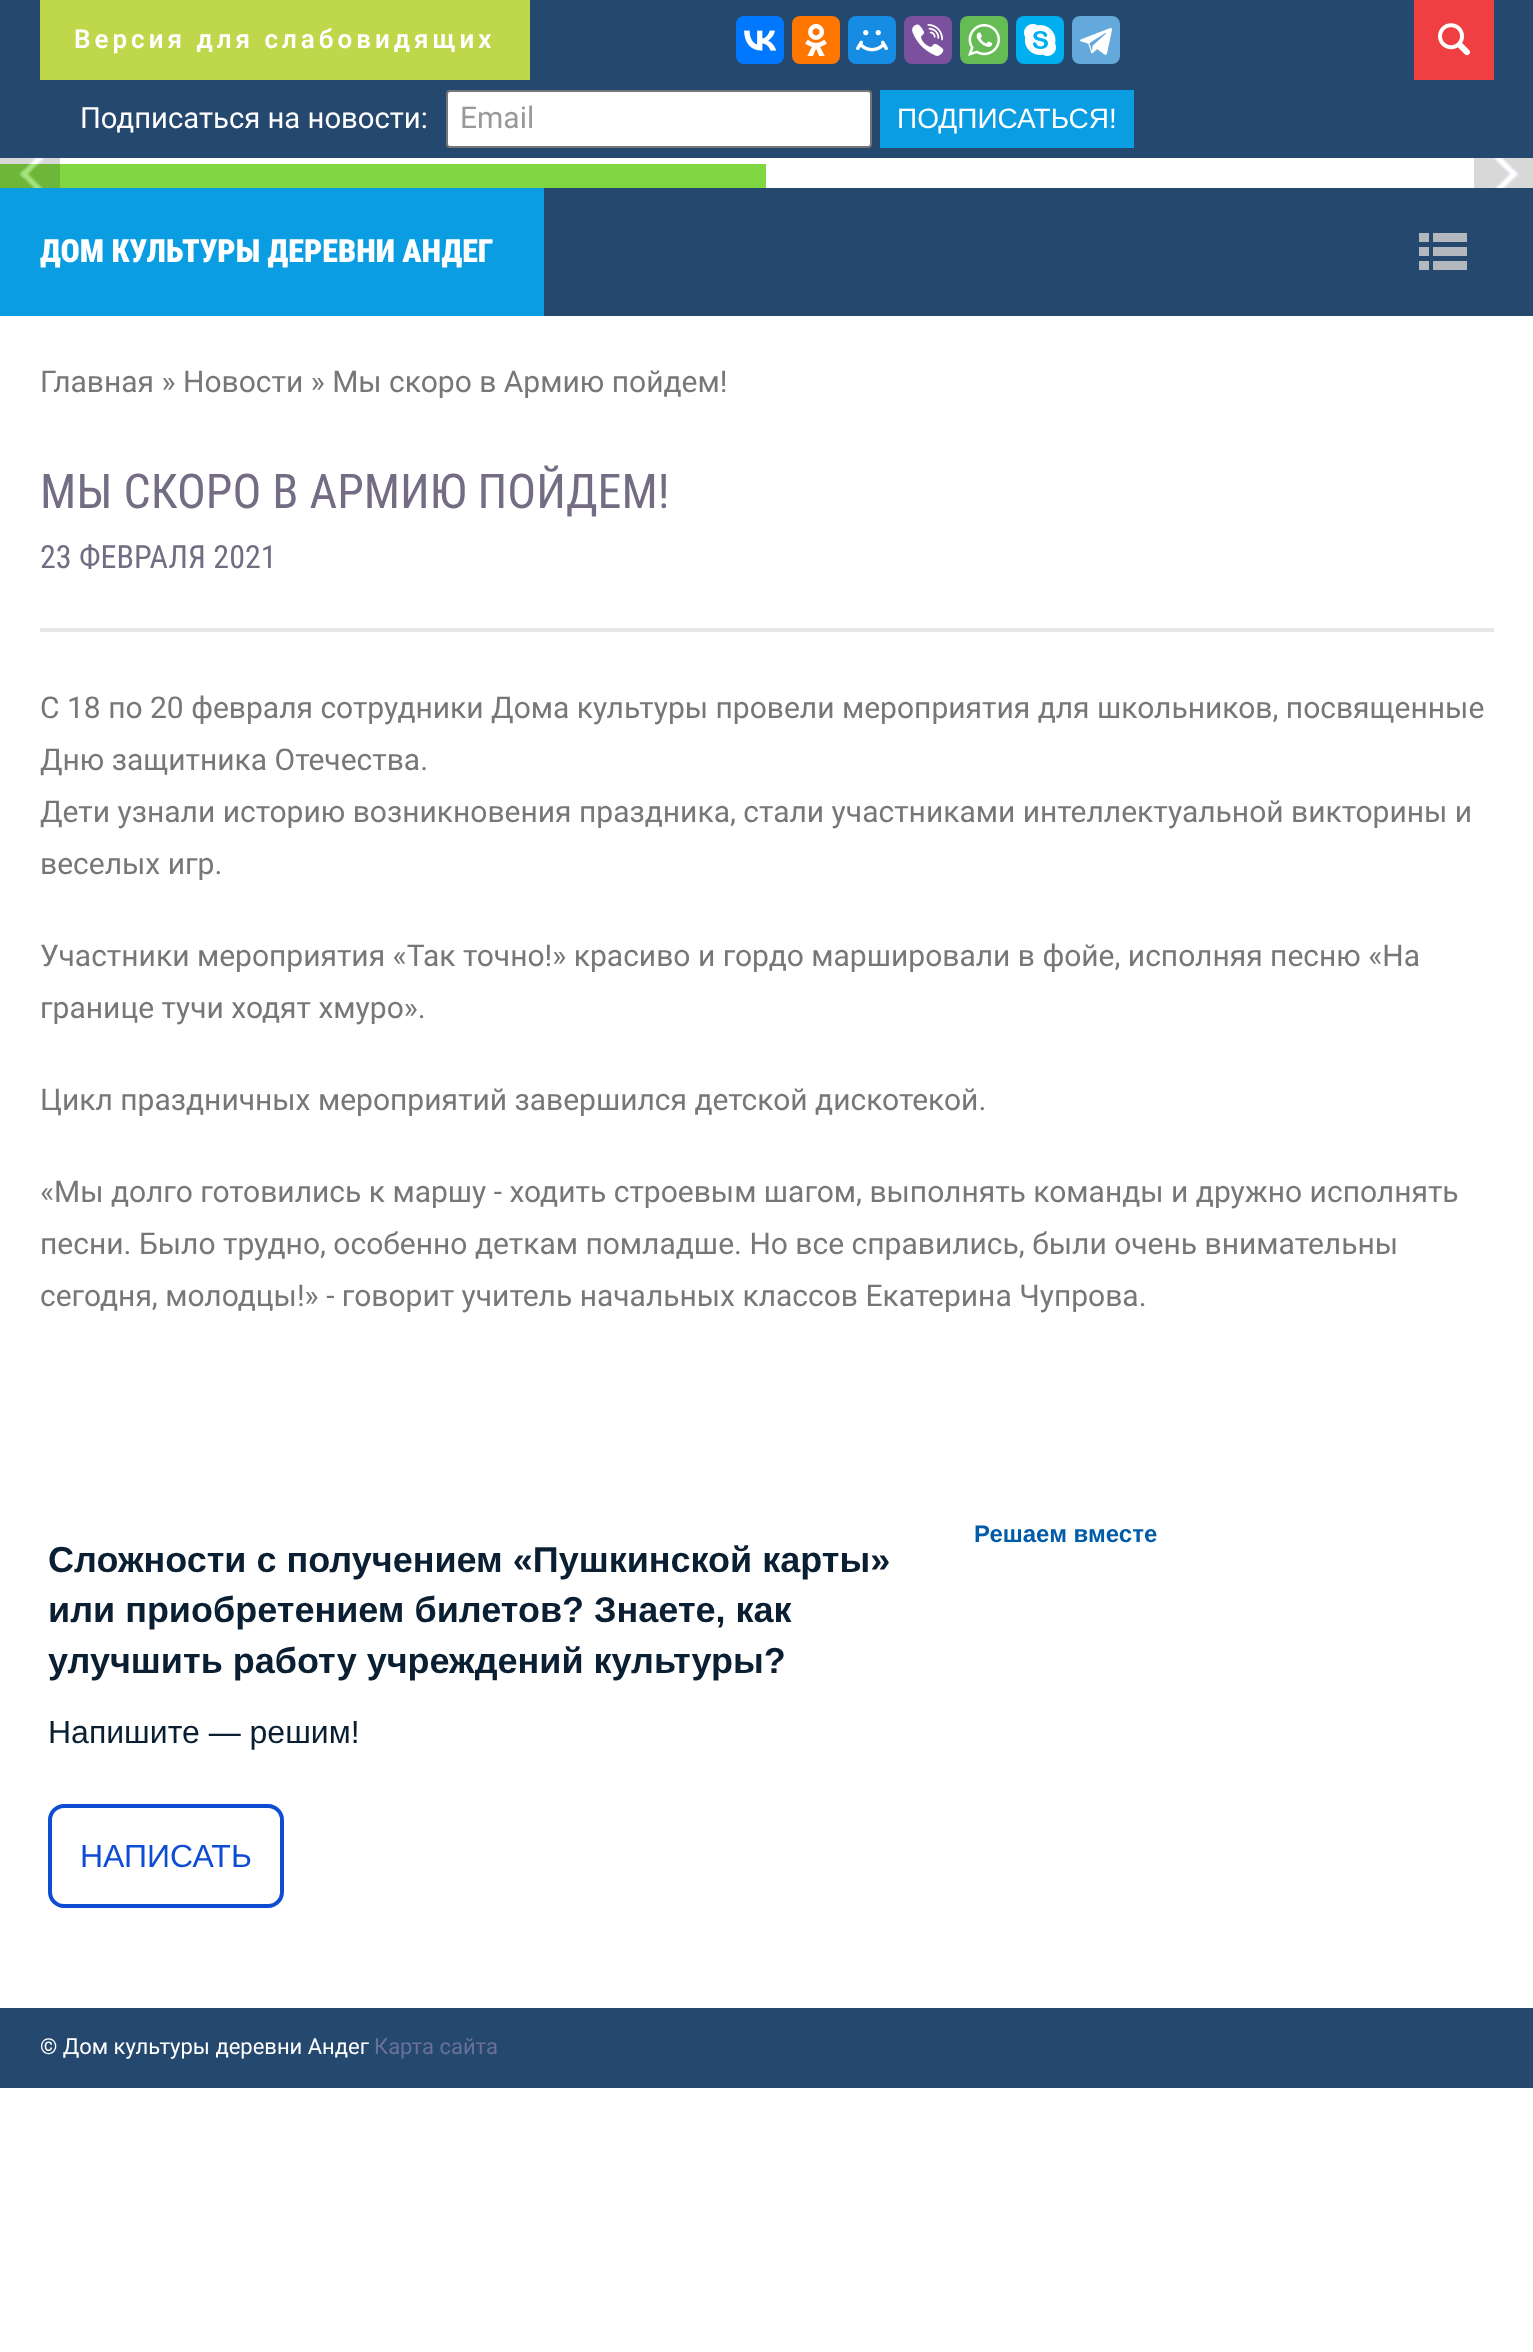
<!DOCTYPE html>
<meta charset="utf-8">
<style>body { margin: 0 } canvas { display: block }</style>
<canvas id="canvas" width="1533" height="2352"></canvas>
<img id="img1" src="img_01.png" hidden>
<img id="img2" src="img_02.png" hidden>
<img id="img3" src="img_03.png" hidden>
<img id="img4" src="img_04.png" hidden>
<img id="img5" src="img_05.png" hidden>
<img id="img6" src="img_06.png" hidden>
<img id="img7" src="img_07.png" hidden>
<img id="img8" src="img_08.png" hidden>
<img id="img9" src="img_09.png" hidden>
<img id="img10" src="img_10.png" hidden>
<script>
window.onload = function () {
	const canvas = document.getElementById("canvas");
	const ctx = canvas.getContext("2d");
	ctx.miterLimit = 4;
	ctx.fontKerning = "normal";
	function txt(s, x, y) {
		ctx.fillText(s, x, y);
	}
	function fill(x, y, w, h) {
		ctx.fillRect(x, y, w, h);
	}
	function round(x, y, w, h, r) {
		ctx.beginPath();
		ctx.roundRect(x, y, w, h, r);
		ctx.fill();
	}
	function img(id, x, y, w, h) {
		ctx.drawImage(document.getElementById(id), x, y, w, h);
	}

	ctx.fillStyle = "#FFFFFF";
	fill(0, 0, 1533, 2352);
	ctx.fillStyle = "#25486F";
	fill(0, 0, 1533, 158);
	ctx.fillStyle = "#BFD74B";
	fill(40, 0, 490, 80);
	ctx.fillStyle = "#0077FF";
	round(736, 16, 48, 48, 8);
	img("img1", 744, 30, 33, 21);
	ctx.fillStyle = "#FF7700";
	round(792, 16, 48, 48, 8);
	img("img2", 805, 24, 22, 32);
	ctx.fillStyle = "#168DE2";
	round(848, 16, 48, 48, 8);
	img("img3", 856, 30, 32, 22);
	ctx.fillStyle = "#7B519D";
	round(904, 16, 48, 48, 8);
	img("img4", 912, 24, 32, 32);
	ctx.fillStyle = "#65BC54";
	round(960, 16, 48, 48, 8);
	img("img5", 968, 24, 32, 32);
	ctx.fillStyle = "#00AFF0";
	round(1016, 16, 48, 48, 8);
	img("img6", 1024, 24, 32, 32);
	ctx.fillStyle = "#64A9DC";
	round(1072, 16, 48, 48, 8);
	img("img7", 1080, 28, 32, 27);
	ctx.fillStyle = "#EF3F42";
	fill(1414, 0, 80, 80);
	img("img8", 1438, 23, 32, 33);
	ctx.fillStyle = "#FFFFFF";
	ctx.beginPath();
	ctx.roundRect(447, 91, 424, 56, 3);
	ctx.fill();
	ctx.strokeStyle = "#767676";
	ctx.lineWidth = 2;
	ctx.stroke();
	ctx.fillStyle = "#0A9DE2";
	fill(880, 90, 254, 58);
	ctx.fillStyle = "#81D742";
	fill(0, 164, 20, 24);
	fill(20, 164, 746, 24);
	img("img9", 0, 158, 60, 30);
	img("img10", 1474, 158, 59, 30);
	ctx.fillStyle = "#25486F";
	fill(544, 188, 989, 128);
	ctx.fillStyle = "#0A9DE2";
	fill(0, 188, 544, 128);
	ctx.fillStyle = "#B3B8BE";
	fill(1419, 233, 10, 9);
	fill(1419, 247, 10, 9);
	fill(1419, 261, 10, 9);
	fill(1433, 233, 34, 9);
	fill(1433, 247, 34, 9);
	fill(1433, 261, 34, 9);
	ctx.fillStyle = "#E7E7E7";
	fill(40, 628, 1454, 4);
	ctx.beginPath();
	ctx.roundRect(50, 1806, 232, 100, 14);
	ctx.strokeStyle = "#0D4CD3";
	ctx.lineWidth = 4;
	ctx.stroke();
	ctx.fillStyle = "#25486F";
	fill(0, 2008, 1533, 80);
	ctx.letterSpacing = "4px";
	ctx.font = "600 26px Roboto";
	ctx.fillStyle = "#FFFFFF";
	txt("Версия для слабовидящих", 74, 48);
	ctx.letterSpacing = "0px";
	ctx.font = "29.25px Roboto";
	txt("Подписаться на новости:", 80, 128);
	ctx.font = "30px Roboto";
	ctx.fillStyle = "#999999";
	txt("Email", 460, 128);
	ctx.font = "28px Liberation Sans";
	ctx.fillStyle = "#FFFFFF";
	txt("ПОДПИСАТЬСЯ!", 897, 128);
	ctx.font = "900 32px Roboto Condensed";
	txt("ДОМ КУЛЬТУРЫ ДЕРЕВНИ АНДЕГ", 40, 262);
	ctx.font = "30px Roboto";
	ctx.fillStyle = "#777777";
	txt("Главная » Новости » Мы скоро в Армию пойдем!", 40, 392);
	ctx.font = "48px Roboto Condensed";
	ctx.fillStyle = "#736C83";
	txt("МЫ СКОРО В АРМИЮ ПОЙДЕМ!", 40, 508);
	ctx.font = "32px Roboto Condensed";
	txt("23 ФЕВРАЛЯ 2021", 40, 568);
	ctx.font = "30px Roboto";
	ctx.fillStyle = "#777777";
	txt("С 18 по 20 февраля сотрудники Дома культуры провели мероприятия для школьников, посвященные", 40, 718);
	txt("Дню защитника Отечества.", 40, 770);
	txt("Дети узнали историю возникновения праздника, стали участниками интеллектуальной викторины и", 40, 822);
	txt("веселых игр.", 40, 874);
	txt("Участники мероприятия «Так точно!» красиво и гордо маршировали в фойе, исполняя песню «На", 40, 966);
	txt("границе тучи ходят хмуро».", 40, 1018);
	txt("Цикл праздничных мероприятий завершился детской дискотекой.", 40, 1110);
	txt("«Мы долго готовились к маршу - ходить строевым шагом, выполнять команды и дружно исполнять", 40, 1202);
	txt("песни. Было трудно, особенно деткам помладше. Но все справились, были очень внимательны", 40, 1254);
	txt("сегодня, молодцы!» - говорит учитель начальных классов Екатерина Чупрова.", 40, 1306);
	ctx.font = "bold 24px Liberation Sans";
	ctx.fillStyle = "#005CA9";
	txt("Решаем вместе", 974, 1542);
	ctx.font = "bold 36px Liberation Sans";
	ctx.fillStyle = "#0B1F33";
	txt("Сложности с получением «Пушкинской карты»", 48, 1572);
	txt("или приобретением билетов? Знаете, как", 48, 1622);
	txt("улучшить работу учреждений культуры?", 48, 1673);
	ctx.font = "32px Liberation Sans";
	txt("Напишите — решим!", 48, 1743);
	ctx.fillStyle = "#0D4CD3";
	txt("НАПИСАТЬ", 80, 1867);
	ctx.font = "22px Roboto";
	ctx.fillStyle = "#FFFFFF";
	txt("© Дом культуры деревни Андег", 40, 2054);
	ctx.fillStyle = "#697296";
	txt("Карта сайта", 374, 2054);
};
</script>
